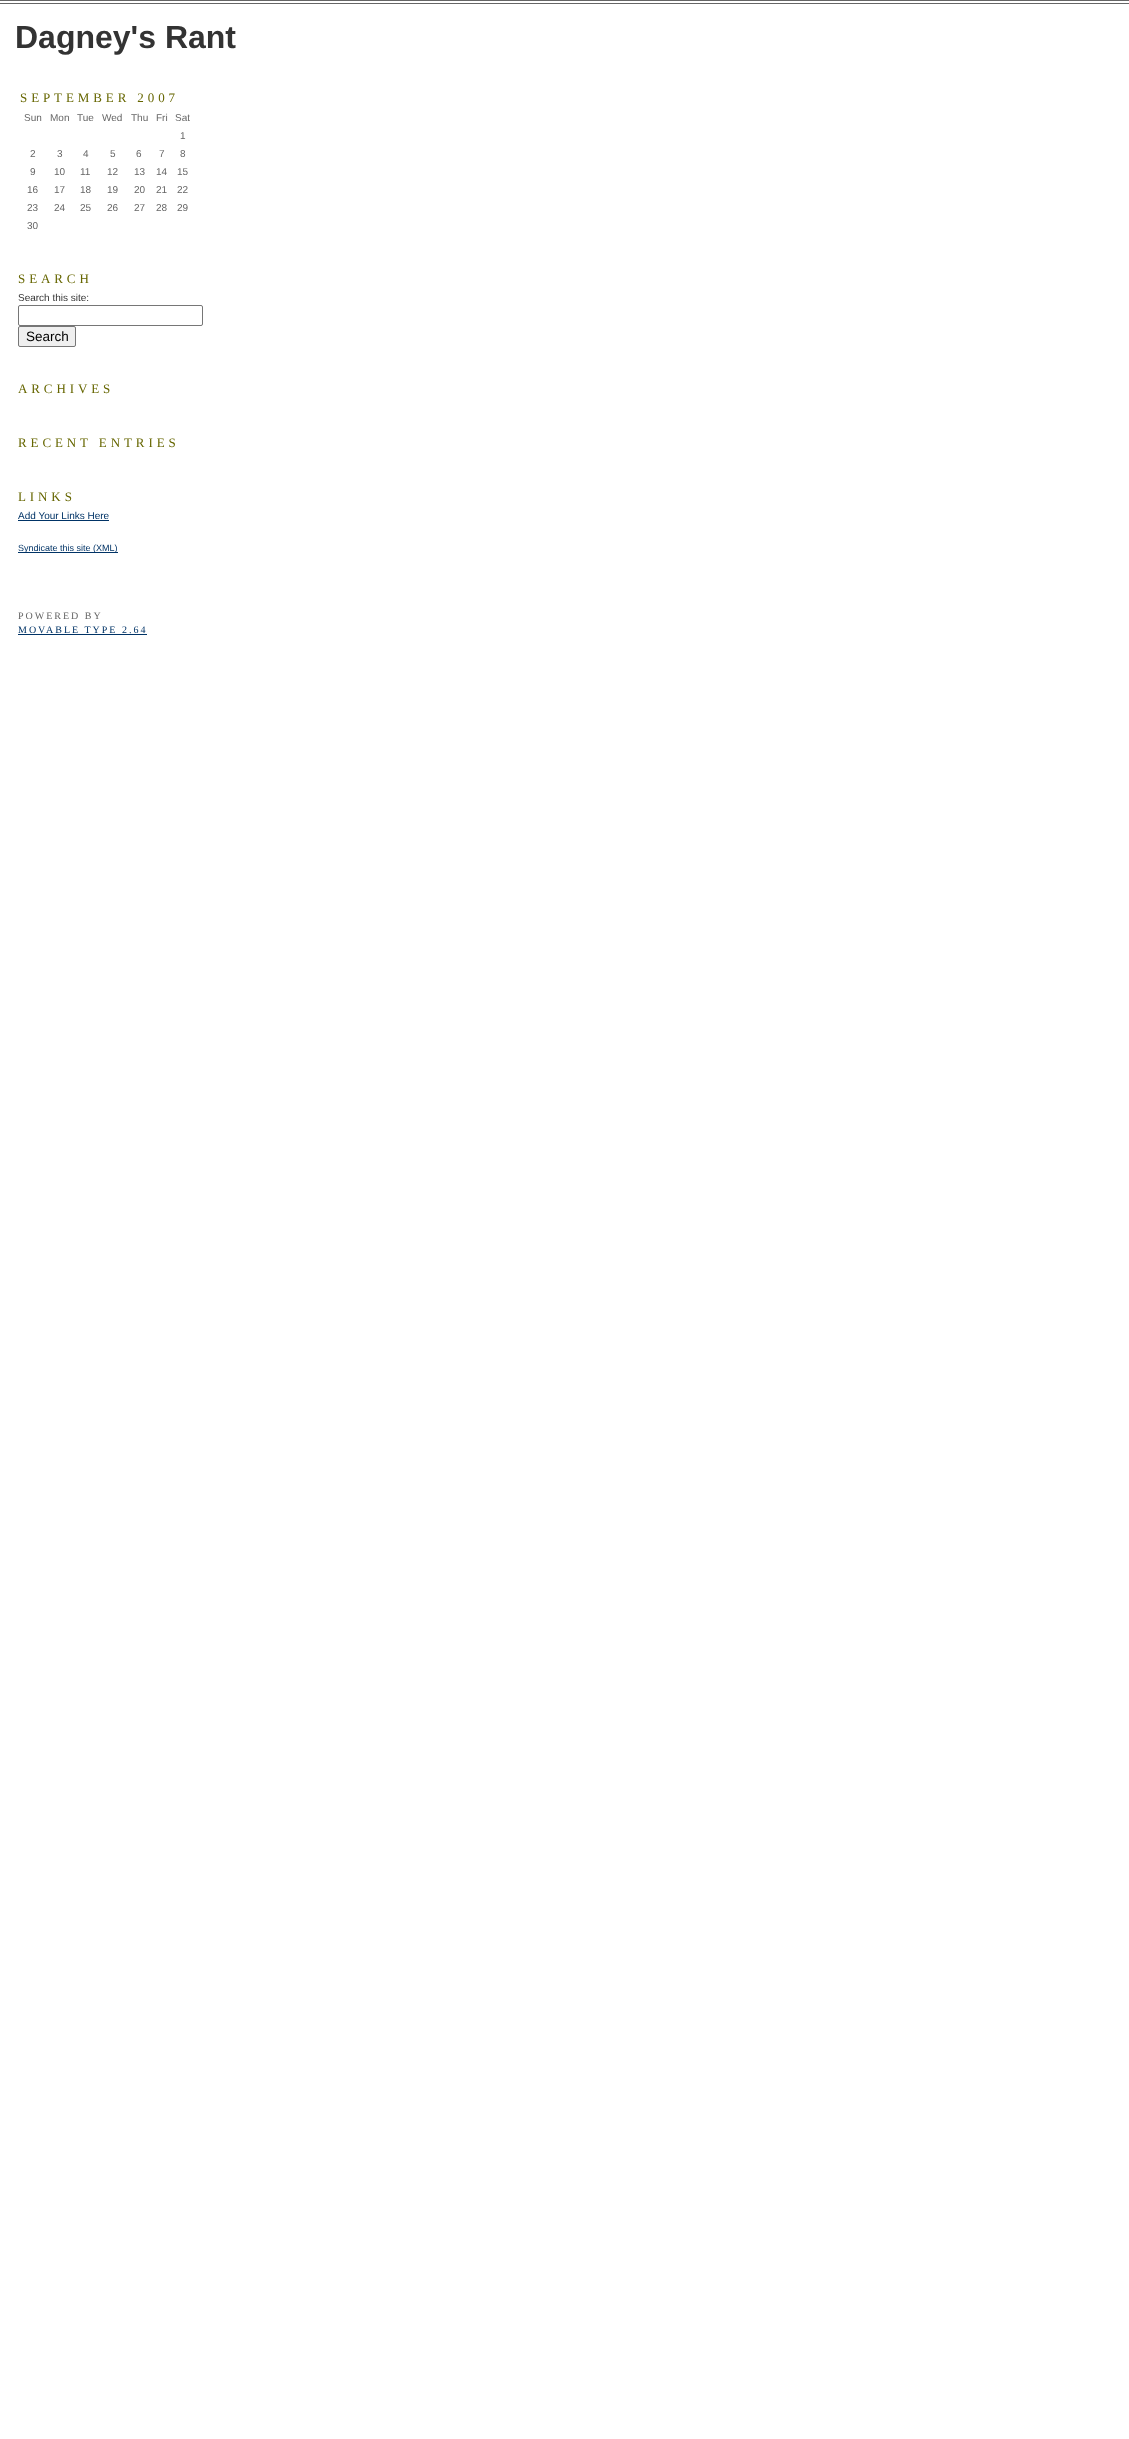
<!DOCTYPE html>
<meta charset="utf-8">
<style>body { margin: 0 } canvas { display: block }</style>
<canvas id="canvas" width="1129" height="2439"></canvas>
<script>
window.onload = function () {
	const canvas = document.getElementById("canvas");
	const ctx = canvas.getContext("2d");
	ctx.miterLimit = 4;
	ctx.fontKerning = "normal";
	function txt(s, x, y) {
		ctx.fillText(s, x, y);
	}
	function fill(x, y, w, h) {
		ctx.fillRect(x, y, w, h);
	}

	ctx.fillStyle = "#FFFFFF";
	fill(0, 0, 1129, 2439);
	ctx.fillStyle = "#666666";
	fill(0, 0, 1129, 1);
	fill(0, 3, 1129, 1);
	ctx.beginPath();
	ctx.roundRect(18.5, 305.5, 184, 20, 1.5);
	ctx.strokeStyle = "#767676";
	ctx.stroke();
	ctx.fillStyle = "#EFEFEF";
	ctx.beginPath();
	ctx.roundRect(18.5, 326.5, 57, 20, 1.5);
	ctx.fill();
	ctx.stroke();
	ctx.fillStyle = "#003366";
	fill(18, 520, 91, 1);
	fill(18, 552, 100, 1);
	fill(18, 634, 129, 1);
	ctx.font = "bold 32px Liberation Sans";
	ctx.fillStyle = "#333333";
	txt("Dagney's Rant", 15, 48);
	ctx.letterSpacing = "3.9px";
	ctx.font = "13px Liberation Serif";
	ctx.fillStyle = "#666600";
	txt("SEPTEMBER 2007", 20, 102);
	ctx.letterSpacing = "0px";
	ctx.font = "10px Liberation Sans";
	ctx.fillStyle = "#666666";
	txt("Sun", 24, 121);
	txt("Mon", 50, 121);
	txt("Tue", 77, 121);
	txt("Wed", 102, 121);
	txt("Thu", 131, 121);
	txt("Fri", 156, 121);
	txt("Sat", 175, 121);
	txt("1", 180, 139);
	txt("2", 30, 157);
	txt("3", 57, 157);
	txt("4", 83, 157);
	txt("5", 110, 157);
	txt("6", 136, 157);
	txt("7", 159, 157);
	txt("8", 180, 157);
	txt("9", 30, 175);
	txt("10", 54, 175);
	txt("11", 80, 175);
	txt("12", 107, 175);
	txt("13", 134, 175);
	txt("14", 156, 175);
	txt("15", 177, 175);
	txt("16", 27, 193);
	txt("17", 54, 193);
	txt("18", 80, 193);
	txt("19", 107, 193);
	txt("20", 134, 193);
	txt("21", 156, 193);
	txt("22", 177, 193);
	txt("23", 27, 211);
	txt("24", 54, 211);
	txt("25", 80, 211);
	txt("26", 107, 211);
	txt("27", 134, 211);
	txt("28", 156, 211);
	txt("29", 177, 211);
	txt("30", 27, 229);
	ctx.letterSpacing = "3.9px";
	ctx.font = "13px Liberation Serif";
	ctx.fillStyle = "#666600";
	txt("SEARCH", 18, 283);
	ctx.letterSpacing = "0px";
	ctx.font = "10px Liberation Sans";
	ctx.fillStyle = "#333333";
	txt("Search this site:", 18, 301);
	ctx.font = "13.5px Liberation Sans";
	ctx.fillStyle = "#000000";
	txt("Search", 26, 341);
	ctx.letterSpacing = "3.9px";
	ctx.font = "13px Liberation Serif";
	ctx.fillStyle = "#666600";
	txt("ARCHIVES", 18, 393);
	txt("RECENT ENTRIES", 18, 447);
	txt("LINKS", 18, 501);
	ctx.letterSpacing = "0px";
	ctx.font = "10px Liberation Sans";
	ctx.fillStyle = "#003366";
	txt("Add Your Links Here", 18, 519);
	ctx.font = "9px Liberation Sans";
	txt("Syndicate this site (XML)", 18, 551);
	ctx.letterSpacing = "2px";
	ctx.font = "10px Liberation Serif";
	ctx.fillStyle = "#666666";
	txt("POWERED BY", 18, 619);
	ctx.fillStyle = "#003366";
	txt("MOVABLE TYPE 2.64", 18, 633);
};
</script>
